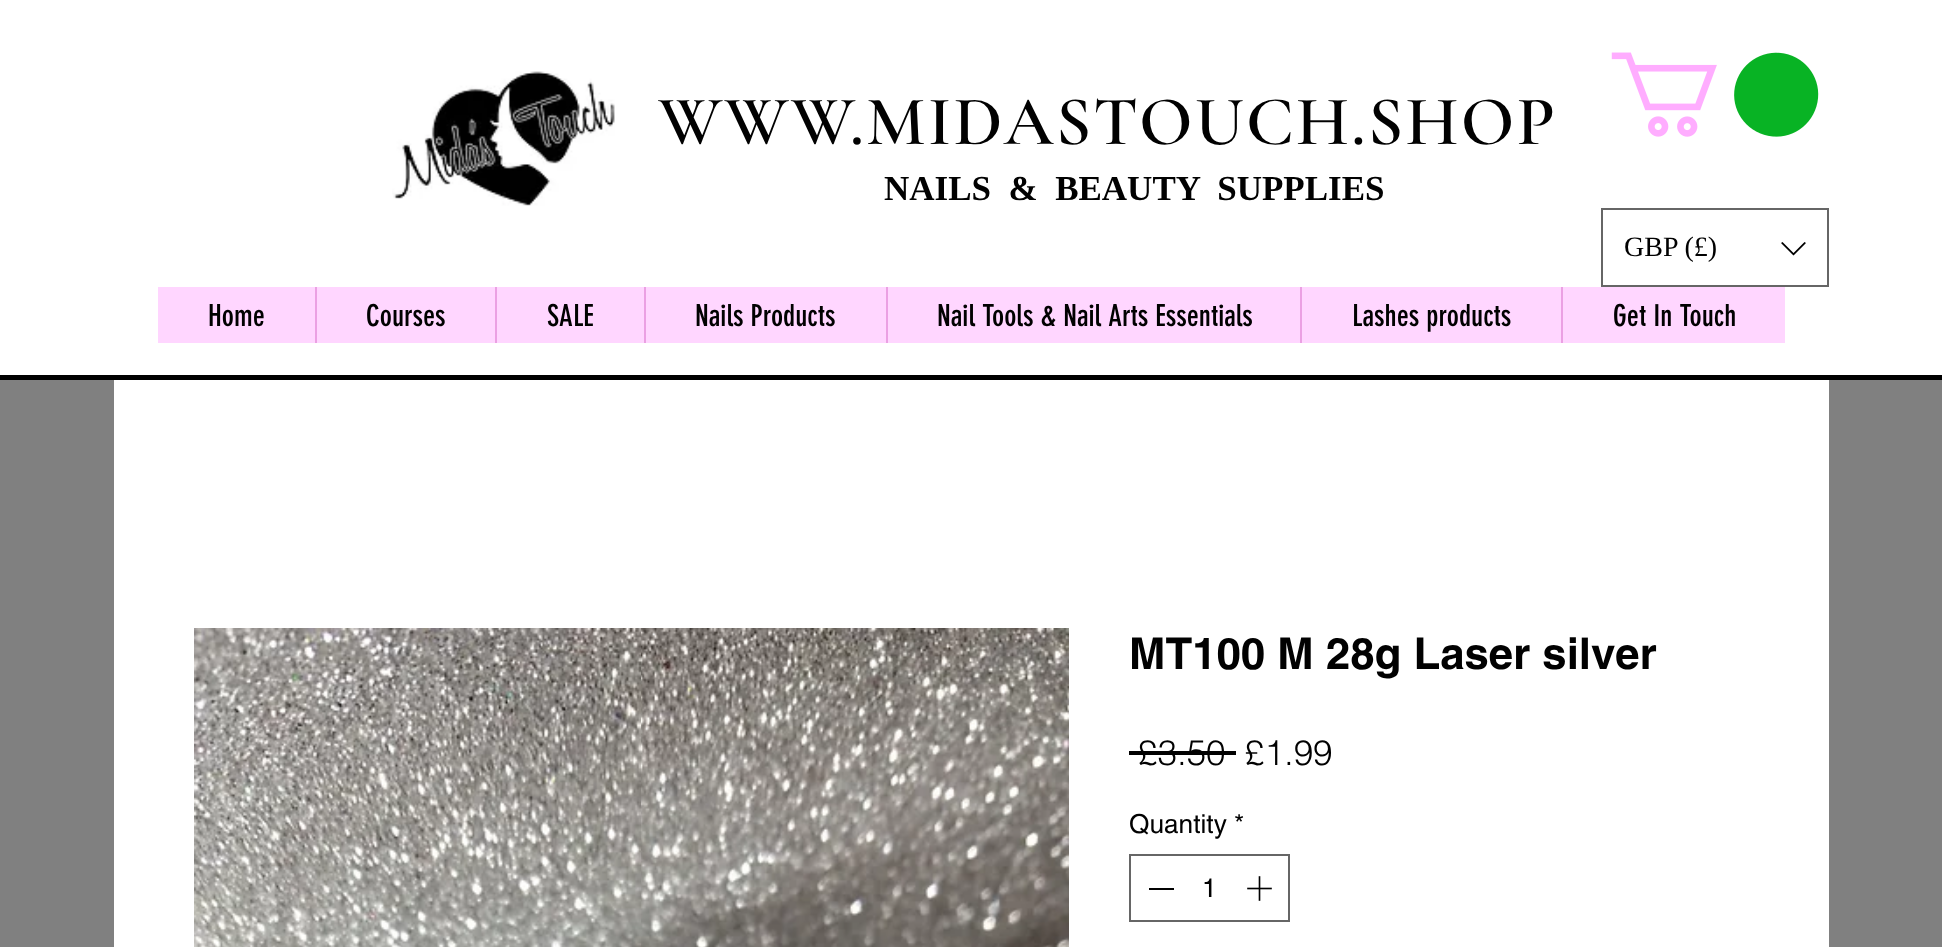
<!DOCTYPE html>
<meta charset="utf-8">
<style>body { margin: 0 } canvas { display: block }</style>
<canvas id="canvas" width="1942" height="947"></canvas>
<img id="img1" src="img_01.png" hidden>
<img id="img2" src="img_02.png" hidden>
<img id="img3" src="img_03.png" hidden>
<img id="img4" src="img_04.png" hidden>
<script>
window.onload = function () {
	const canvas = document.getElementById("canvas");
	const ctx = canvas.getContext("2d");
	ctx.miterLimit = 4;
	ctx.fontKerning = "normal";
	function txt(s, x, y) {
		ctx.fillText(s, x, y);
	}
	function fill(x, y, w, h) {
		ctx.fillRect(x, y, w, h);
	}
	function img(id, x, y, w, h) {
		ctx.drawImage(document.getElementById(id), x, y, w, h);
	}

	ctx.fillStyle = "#808080";
	fill(0, 0, 1942, 947);
	ctx.fillStyle = "#FFFFFF";
	fill(0, 0, 1942, 375);
	ctx.fillStyle = "#000000";
	fill(0, 375, 1942, 5);
	img("img1", 392, 71, 223, 135);
	img("img2", 1611, 52, 208, 85);
	ctx.strokeStyle = "#666666";
	ctx.lineWidth = 2;
	ctx.strokeRect(1602, 209, 226, 77);
	ctx.beginPath();
	ctx.moveTo(1804.5, 242);
	ctx.lineTo(1806, 243);
	ctx.lineTo(1793.5, 255.5);
	ctx.lineTo(1781, 243);
	ctx.lineTo(1782.5, 242);
	ctx.lineTo(1793.5, 253);
	ctx.closePath();
	ctx.fill("evenodd");
	ctx.fillStyle = "#FFD6FF";
	fill(158, 287, 1627, 56);
	ctx.fillStyle = "#EBA0E3";
	fill(315, 287, 2, 56);
	fill(495, 287, 2, 56);
	fill(644, 287, 2, 56);
	fill(886, 287, 2, 56);
	fill(1300, 287, 2, 56);
	fill(1561, 287, 2, 56);
	ctx.fillStyle = "#FFFFFF";
	fill(114, 380, 1715, 567);
	img("img3", 194, 628, 875, 319);
	ctx.fillStyle = "#010101";
	fill(1129, 751, 107, 4);
	ctx.strokeRect(1130, 855, 159, 66);
	fill(1149, 888, 25, 2);
	img("img4", 1247, 876, 25, 25);
	ctx.letterSpacing = "2.1px";
	ctx.font = "600 70px Cormorant Garamond";
	txt("WWW.MIDASTOUCH.SHOP", 658, 144);
	ctx.letterSpacing = "0px";
	ctx.font = "bold 35px Liberation Serif";
	txt("NAILS  &  BEAUTY  SUPPLIES", 884, 200);
	ctx.font = "28px Liberation Serif";
	txt("GBP (£)", 1624, 256);
	ctx.font = "29.75px 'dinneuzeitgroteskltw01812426'";
	txt("Home", 208, 326);
	txt("Courses", 366, 326);
	txt("SALE", 547, 326);
	txt("Nails Products", 695, 326);
	txt("Nail Tools & Nail Arts Essentials", 937, 326);
	txt("Lashes products", 1352, 326);
	txt("Get In Touch", 1613, 326);
	ctx.font = "bold 43.75px helvetica";
	txt("MT100 M 28g Laser silver", 1129, 669);
	ctx.font = "300 35px helvetica";
	txt("£3.50", 1138, 765);
	txt("£1.99", 1245, 765);
	ctx.font = "26.25px helvetica";
	txt("Quantity *", 1129, 833);
	txt("1", 1202, 897);
};
</script>
